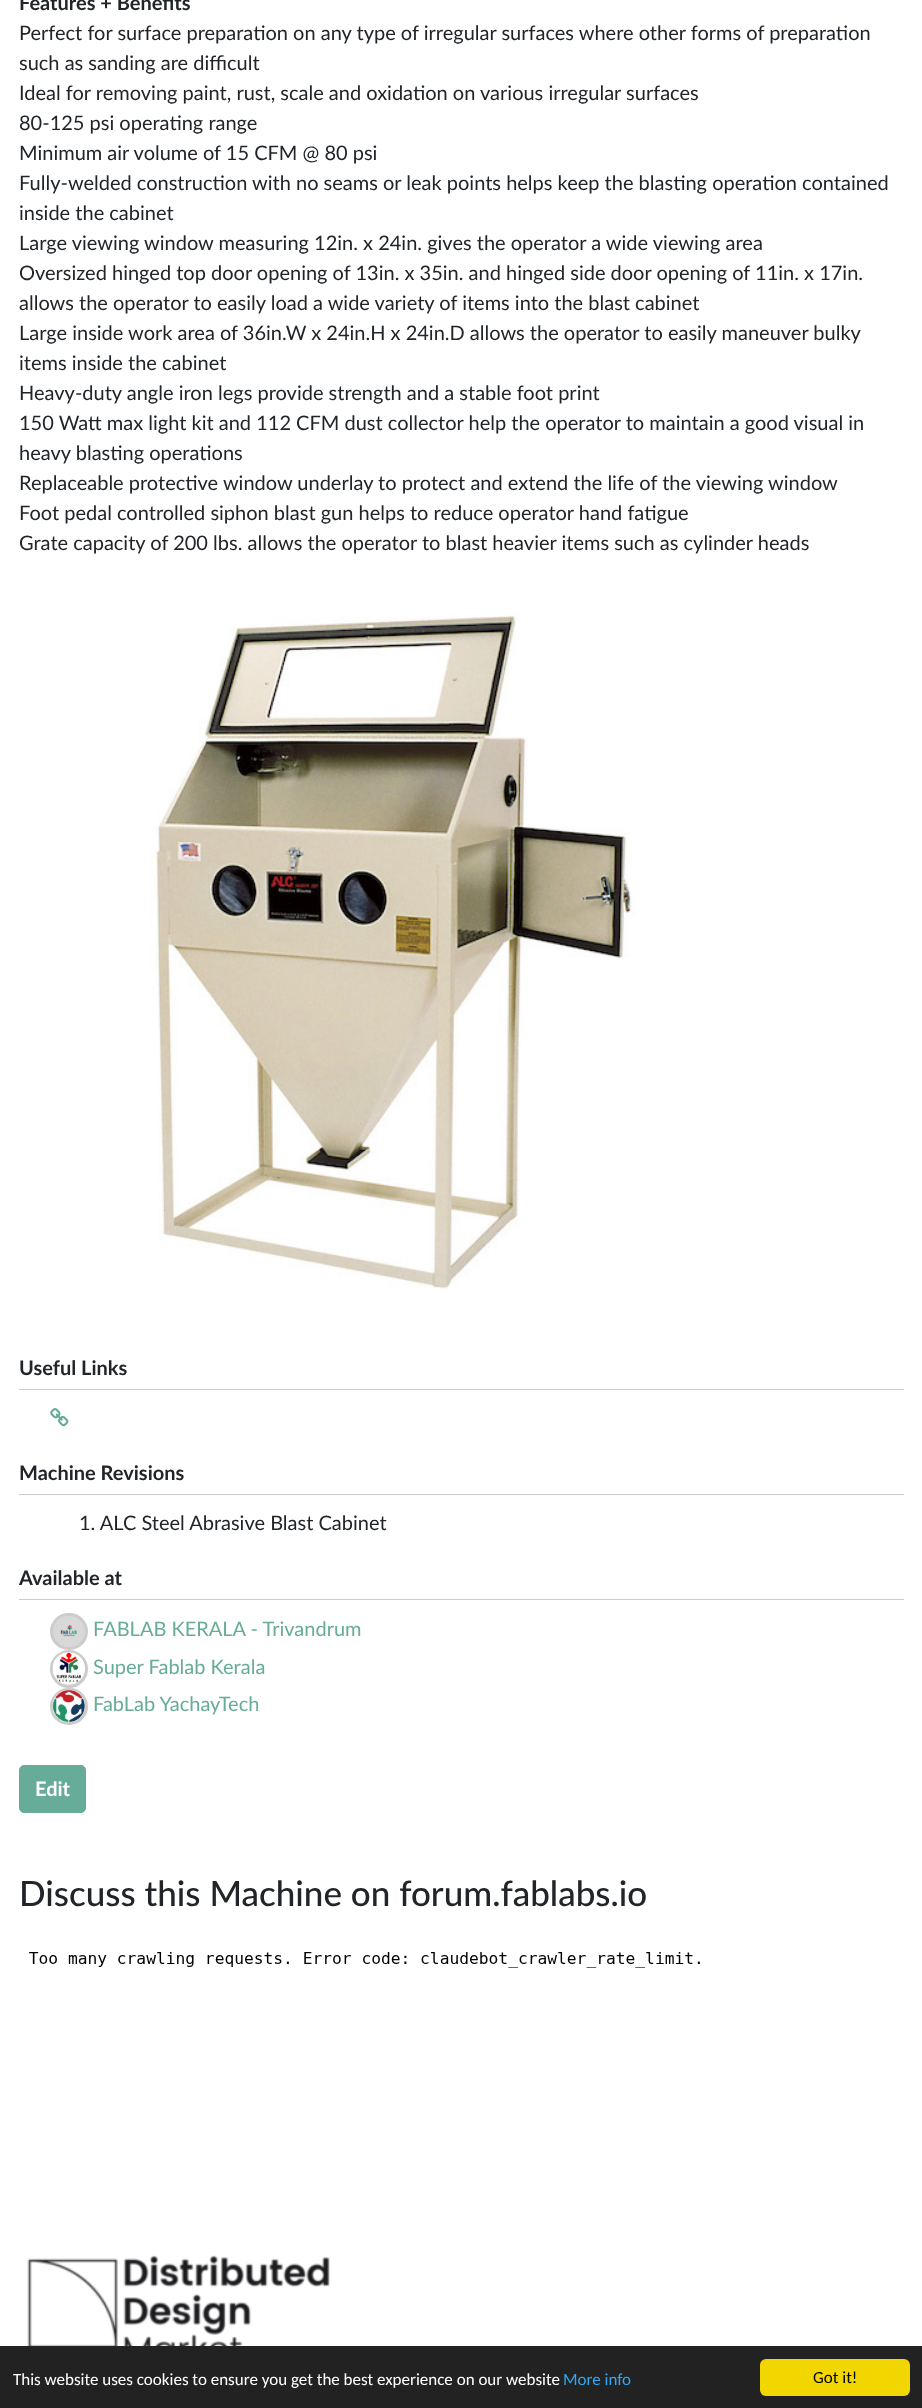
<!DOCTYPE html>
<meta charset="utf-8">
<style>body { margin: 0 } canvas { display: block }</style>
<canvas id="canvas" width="922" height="2408"></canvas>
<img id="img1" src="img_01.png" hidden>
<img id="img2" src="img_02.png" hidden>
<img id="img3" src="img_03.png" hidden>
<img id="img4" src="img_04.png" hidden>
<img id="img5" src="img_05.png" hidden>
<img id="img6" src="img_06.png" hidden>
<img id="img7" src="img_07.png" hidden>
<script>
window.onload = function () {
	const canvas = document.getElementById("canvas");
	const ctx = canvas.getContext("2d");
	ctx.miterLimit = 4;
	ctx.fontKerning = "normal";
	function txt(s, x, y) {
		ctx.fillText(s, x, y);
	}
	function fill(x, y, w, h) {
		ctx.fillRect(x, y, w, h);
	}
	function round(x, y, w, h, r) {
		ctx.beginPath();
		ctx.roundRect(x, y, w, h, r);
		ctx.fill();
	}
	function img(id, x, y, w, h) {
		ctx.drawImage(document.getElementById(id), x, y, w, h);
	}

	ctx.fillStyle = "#FFFFFF";
	fill(0, 0, 922, 2408);
	img("img1", 149, 613, 487, 676);
	ctx.fillStyle = "#CCCCCC";
	fill(19, 1389, 885, 1);
	img("img2", 50, 1408, 19, 19);
	fill(19, 1494, 885, 1);
	fill(19, 1599, 885, 1);
	ctx.fillStyle = "#D8D8D8";
	ctx.beginPath();
	ctx.roundRect(51.5, 1614.5, 35, 34, 17);
	ctx.fill();
	ctx.strokeStyle = "#CCCCCC";
	ctx.lineWidth = 3;
	ctx.stroke();
	img("img3", 60, 1625, 17, 12);
	ctx.beginPath();
	ctx.arc(69, 1669, 17.5, 0, Math.PI * 2);
	ctx.fill();
	ctx.stroke();
	img("img4", 52, 1652, 33, 33);
	ctx.beginPath();
	ctx.roundRect(51.5, 1689.5, 35, 34, 17);
	ctx.fill();
	ctx.stroke();
	img("img5", 52, 1690, 33, 32);
	ctx.fillStyle = "#67AC98";
	ctx.beginPath();
	ctx.roundRect(19.5, 1765.5, 66, 47, 4.5);
	ctx.fill();
	ctx.strokeStyle = "#67AC98";
	ctx.lineWidth = 1;
	ctx.stroke();
	img("img6", 29, 1952, 671, 16);
	img("img7", 27, 2255, 303, 91);
	ctx.fillStyle = "#222222";
	fill(0, 2346, 922, 62);
	ctx.fillStyle = "#F1D600";
	round(760, 2359, 150, 37, 6);
	ctx.font = "bold 20px Lato";
	ctx.fillStyle = "#212529";
	txt("Features + Benefits", 19, 10);
	ctx.font = "20px Lato";
	txt("Perfect for surface preparation on any type of irregular surfaces where other forms of preparation", 19, 40);
	txt("such as sanding are difficult", 19, 70);
	txt("Ideal for removing paint, rust, scale and oxidation on various irregular surfaces", 19, 100);
	txt("80-125 psi operating range", 19, 130);
	txt("Minimum air volume of 15 CFM @ 80 psi", 19, 160);
	txt("Fully-welded construction with no seams or leak points helps keep the blasting operation contained", 19, 190);
	txt("inside the cabinet", 19, 220);
	txt("Large viewing window measuring 12in. x 24in. gives the operator a wide viewing area", 19, 250);
	txt("Oversized hinged top door opening of 13in. x 35in. and hinged side door opening of 11in. x 17in.", 19, 280);
	txt("allows the operator to easily load a wide variety of items into the blast cabinet", 19, 310);
	txt("Large inside work area of 36in.W x 24in.H x 24in.D allows the operator to easily maneuver bulky", 19, 340);
	txt("items inside the cabinet", 19, 370);
	txt("Heavy-duty angle iron legs provide strength and a stable foot print", 19, 400);
	txt("150 Watt max light kit and 112 CFM dust collector help the operator to maintain a good visual in", 19, 430);
	txt("heavy blasting operations", 19, 460);
	txt("Replaceable protective window underlay to protect and extend the life of the viewing window", 19, 490);
	txt("Foot pedal controlled siphon blast gun helps to reduce operator hand fatigue", 19, 520);
	txt("Grate capacity of 200 lbs. allows the operator to blast heavier items such as cylinder heads", 19, 550);
	ctx.font = "bold 20px Lato";
	txt("Useful Links", 19, 1375);
	txt("Machine Revisions", 19, 1480);
	ctx.font = "20px Lato";
	txt("1. ALC Steel Abrasive Blast Cabinet", 79, 1530);
	ctx.font = "bold 20px Lato";
	txt("Available at", 19, 1585);
	ctx.font = "20px Lato";
	ctx.fillStyle = "#67AC98";
	txt("FABLAB KERALA - Trivandrum", 93, 1636);
	txt("Super Fablab Kerala", 93, 1674);
	txt("FabLab YachayTech", 93, 1711);
	ctx.font = "bold 20px Lato";
	ctx.fillStyle = "#FFFFFF";
	txt("Edit", 35, 1796);
	ctx.font = "500 35px Lato";
	ctx.fillStyle = "#212529";
	txt("Discuss this Machine on forum.fablabs.io", 19, 1906);
	ctx.font = "17px Carlito";
	ctx.fillStyle = "#FFFFFF";
	txt("This website uses cookies to ensure you get the best experience on our website", 13, 2385);
	ctx.fillStyle = "#31A8F0";
	txt("More info", 563, 2385);
	ctx.fillStyle = "#000000";
	txt("Got it!", 813, 2383);
};
</script>
